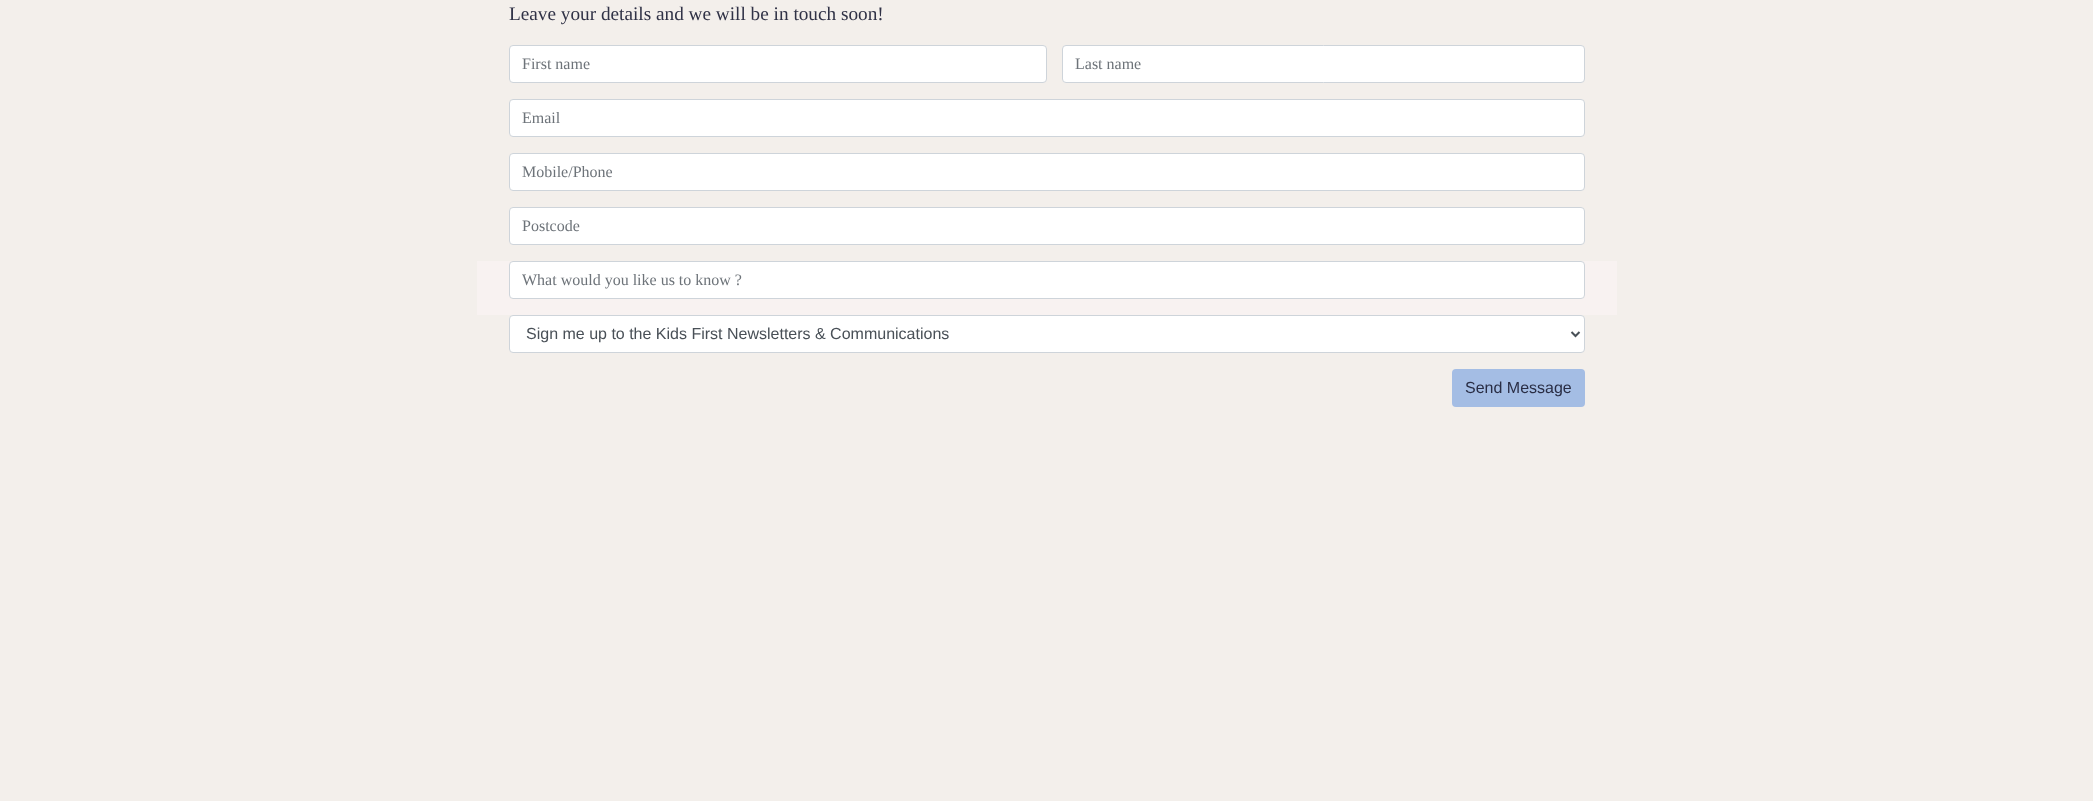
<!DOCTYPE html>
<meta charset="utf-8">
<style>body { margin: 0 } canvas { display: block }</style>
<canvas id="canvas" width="2093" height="801"></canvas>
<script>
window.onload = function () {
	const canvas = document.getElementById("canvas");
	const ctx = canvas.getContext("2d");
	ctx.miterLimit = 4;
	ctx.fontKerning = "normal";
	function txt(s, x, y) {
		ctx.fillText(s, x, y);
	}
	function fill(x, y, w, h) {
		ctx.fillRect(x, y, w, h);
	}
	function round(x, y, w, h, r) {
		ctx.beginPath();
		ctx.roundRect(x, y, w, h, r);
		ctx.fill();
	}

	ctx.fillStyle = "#F3EFEB";
	fill(0, 0, 2093, 801);
	ctx.fillStyle = "#FFFFFF";
	ctx.beginPath();
	ctx.roundRect(509.5, 45.5, 537, 37, 3.5);
	ctx.fill();
	ctx.strokeStyle = "#CED4DA";
	ctx.stroke();
	ctx.beginPath();
	ctx.roundRect(1062.5, 45.5, 522, 37, 3.5);
	ctx.fill();
	ctx.stroke();
	ctx.beginPath();
	ctx.roundRect(509.5, 99.5, 1075, 37, 3.5);
	ctx.fill();
	ctx.stroke();
	ctx.beginPath();
	ctx.roundRect(509.5, 153.5, 1075, 37, 3.5);
	ctx.fill();
	ctx.stroke();
	ctx.beginPath();
	ctx.roundRect(509.5, 207.5, 1075, 37, 3.5);
	ctx.fill();
	ctx.stroke();
	ctx.fillStyle = "#F8F2F1";
	fill(477, 261, 1140, 54);
	ctx.fillStyle = "#FFFFFF";
	ctx.beginPath();
	ctx.roundRect(509.5, 261.5, 1075, 37, 3.5);
	ctx.fill();
	ctx.stroke();
	ctx.beginPath();
	ctx.roundRect(509.5, 315.5, 1075, 37, 3.5);
	ctx.fill();
	ctx.stroke();
	ctx.beginPath();
	ctx.moveTo(1571.5, 332);
	ctx.lineTo(1575.5, 336);
	ctx.lineTo(1579.5, 332);
	ctx.strokeStyle = "#495057";
	ctx.lineWidth = 2;
	ctx.stroke();
	ctx.fillStyle = "#A4BDE4";
	round(1452, 369, 133, 38, 4);
	ctx.font = "19.25px Liberation Serif";
	ctx.fillStyle = "#303246";
	txt("Leave your details and we will be in touch soon!", 509, 20);
	ctx.font = "16px Liberation Serif";
	ctx.fillStyle = "#6D7379";
	txt("First name", 522, 69);
	txt("Last name", 1075, 69);
	txt("Email", 522, 123);
	txt("Mobile/Phone", 522, 177);
	txt("Postcode", 522, 231);
	txt("What would you like us to know ?", 522, 285);
	ctx.font = "16px Liberation Sans";
	ctx.fillStyle = "#495057";
	txt("Sign me up to the Kids First Newsletters & Communications", 526, 339);
	ctx.fillStyle = "#292D44";
	txt("Send Message", 1465, 393);
};
</script>
